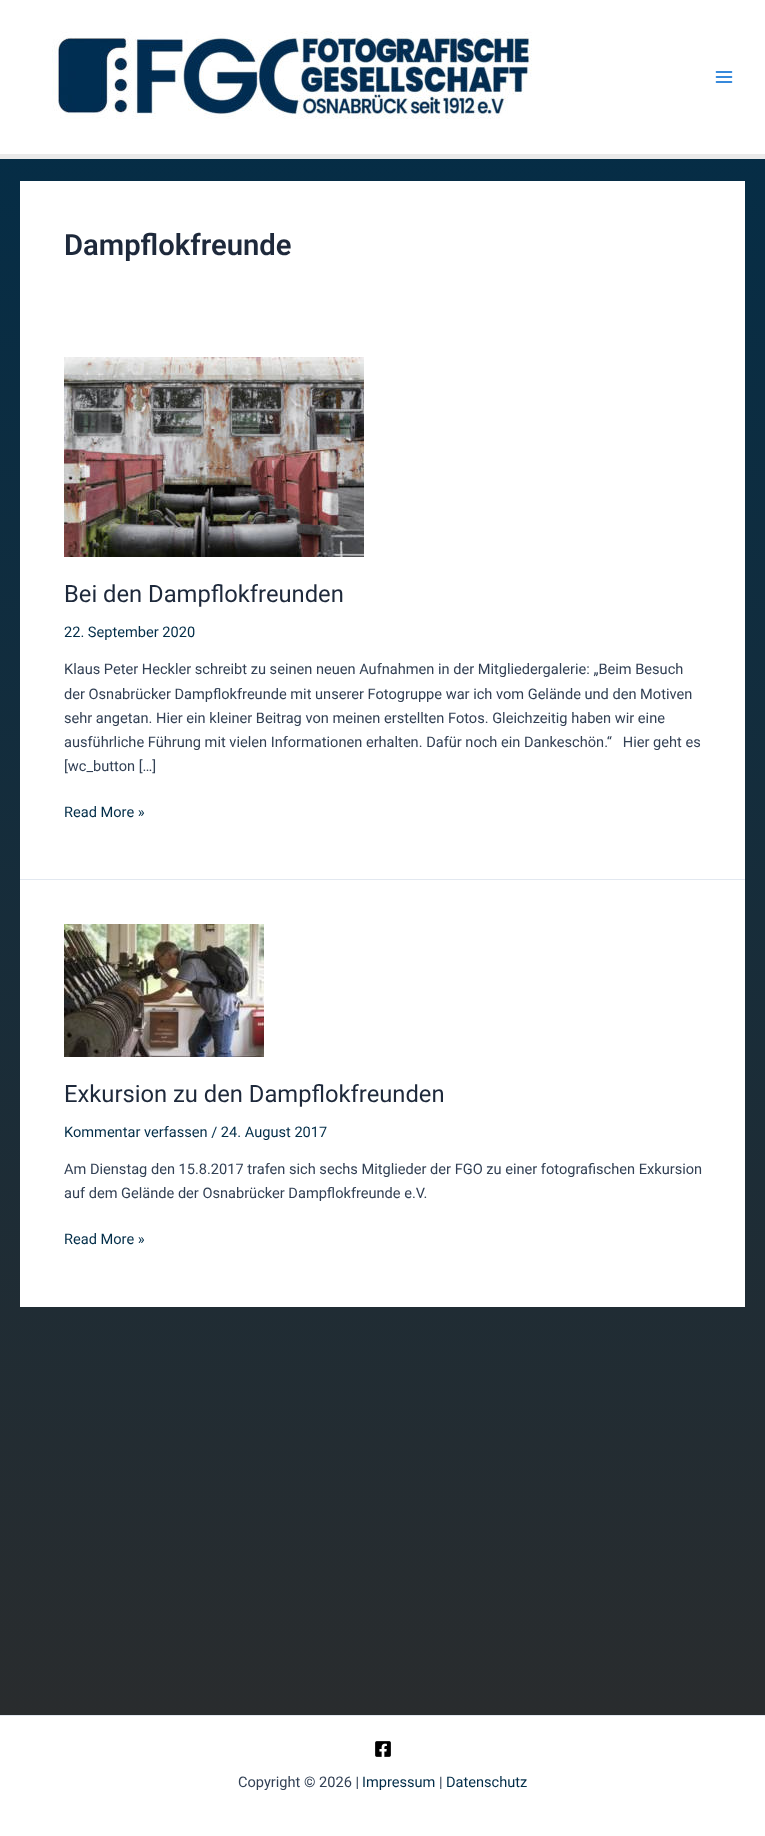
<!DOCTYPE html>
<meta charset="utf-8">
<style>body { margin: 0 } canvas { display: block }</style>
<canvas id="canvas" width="765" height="1836"></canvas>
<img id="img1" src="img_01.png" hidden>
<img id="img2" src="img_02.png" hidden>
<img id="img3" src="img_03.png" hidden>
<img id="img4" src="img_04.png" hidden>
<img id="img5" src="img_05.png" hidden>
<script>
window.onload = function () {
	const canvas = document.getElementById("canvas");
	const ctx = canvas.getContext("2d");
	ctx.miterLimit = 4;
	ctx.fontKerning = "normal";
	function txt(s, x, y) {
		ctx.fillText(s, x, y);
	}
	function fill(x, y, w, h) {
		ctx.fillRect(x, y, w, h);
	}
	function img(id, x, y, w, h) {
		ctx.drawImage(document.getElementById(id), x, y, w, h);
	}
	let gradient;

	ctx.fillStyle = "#FFFFFF";
	fill(0, 0, 765, 1836);
	gradient = ctx.createLinearGradient(382, 0, 383, 1836);
	gradient.addColorStop(0, "#022D48");
	gradient.addColorStop(1, "#2C2C2C");
	ctx.fillStyle = gradient;
	fill(0, 159, 765, 1556);
	ctx.fillStyle = "#EAEAEA";
	fill(0, 154, 765, 5);
	img("img1", 52, 31, 480, 88);
	img("img2", 715, 71, 18, 12);
	ctx.fillStyle = "#FFFFFF";
	fill(20, 181, 725, 698);
	ctx.fillStyle = "#E2E8F0";
	fill(20, 879, 725, 1);
	img("img3", 64, 357, 300, 200);
	ctx.fillStyle = "#FFFFFF";
	fill(20, 880, 725, 427);
	img("img4", 64, 924, 200, 133);
	ctx.fillStyle = "#E2E8F0";
	fill(0, 1715, 765, 1);
	img("img5", 375, 1741, 16, 16);
	ctx.font = "600 29.25px Roboto";
	ctx.fillStyle = "#1E293B";
	txt("Dampflokfreunde", 64, 255);
	ctx.font = "23.75px Roboto";
	txt("Bei den Dampflokfreunden", 64, 602);
	ctx.font = "14.6px Roboto";
	ctx.fillStyle = "#022D48";
	txt("22. September 2020", 64, 637);
	ctx.fillStyle = "#334155";
	txt("Klaus Peter Heckler schreibt zu seinen neuen Aufnahmen in der Mitgliedergalerie: „Beim Besuch", 64, 674);
	txt("der Osnabrücker Dampflokfreunde mit unserer Fotogruppe war ich vom Gelände und den Motiven", 64, 699);
	txt("sehr angetan. Hier ein kleiner Beitrag von meinen erstellten Fotos. Gleichzeitig haben wir eine", 64, 723);
	txt("ausführliche Führung mit vielen Informationen erhalten. Dafür noch ein Dankeschön.“   Hier geht es", 64, 747);
	txt("[wc_button […]", 64, 771);
	ctx.fillStyle = "#022D48";
	txt("Read More »", 64, 817);
	ctx.font = "23.75px Roboto";
	ctx.fillStyle = "#1E293B";
	txt("Exkursion zu den Dampflokfreunden", 64, 1102);
	ctx.font = "14.6px Roboto";
	ctx.fillStyle = "#022D48";
	txt("Kommentar verfassen / 24. August 2017", 64, 1137);
	ctx.fillStyle = "#334155";
	txt("Am Dienstag den 15.8.2017 trafen sich sechs Mitglieder der FGO zu einer fotografischen Exkursion", 64, 1174);
	txt("auf dem Gelände der Osnabrücker Dampflokfreunde e.V.", 64, 1198);
	ctx.fillStyle = "#022D48";
	txt("Read More »", 64, 1244);
	ctx.fillStyle = "#334155";
	txt("Copyright © 2026 |", 238, 1787);
	ctx.fillStyle = "#022D48";
	txt("Impressum", 362, 1787);
	ctx.fillStyle = "#334155";
	txt("|", 439, 1787);
	ctx.fillStyle = "#022D48";
	txt("Datenschutz", 446, 1787);
};
</script>
